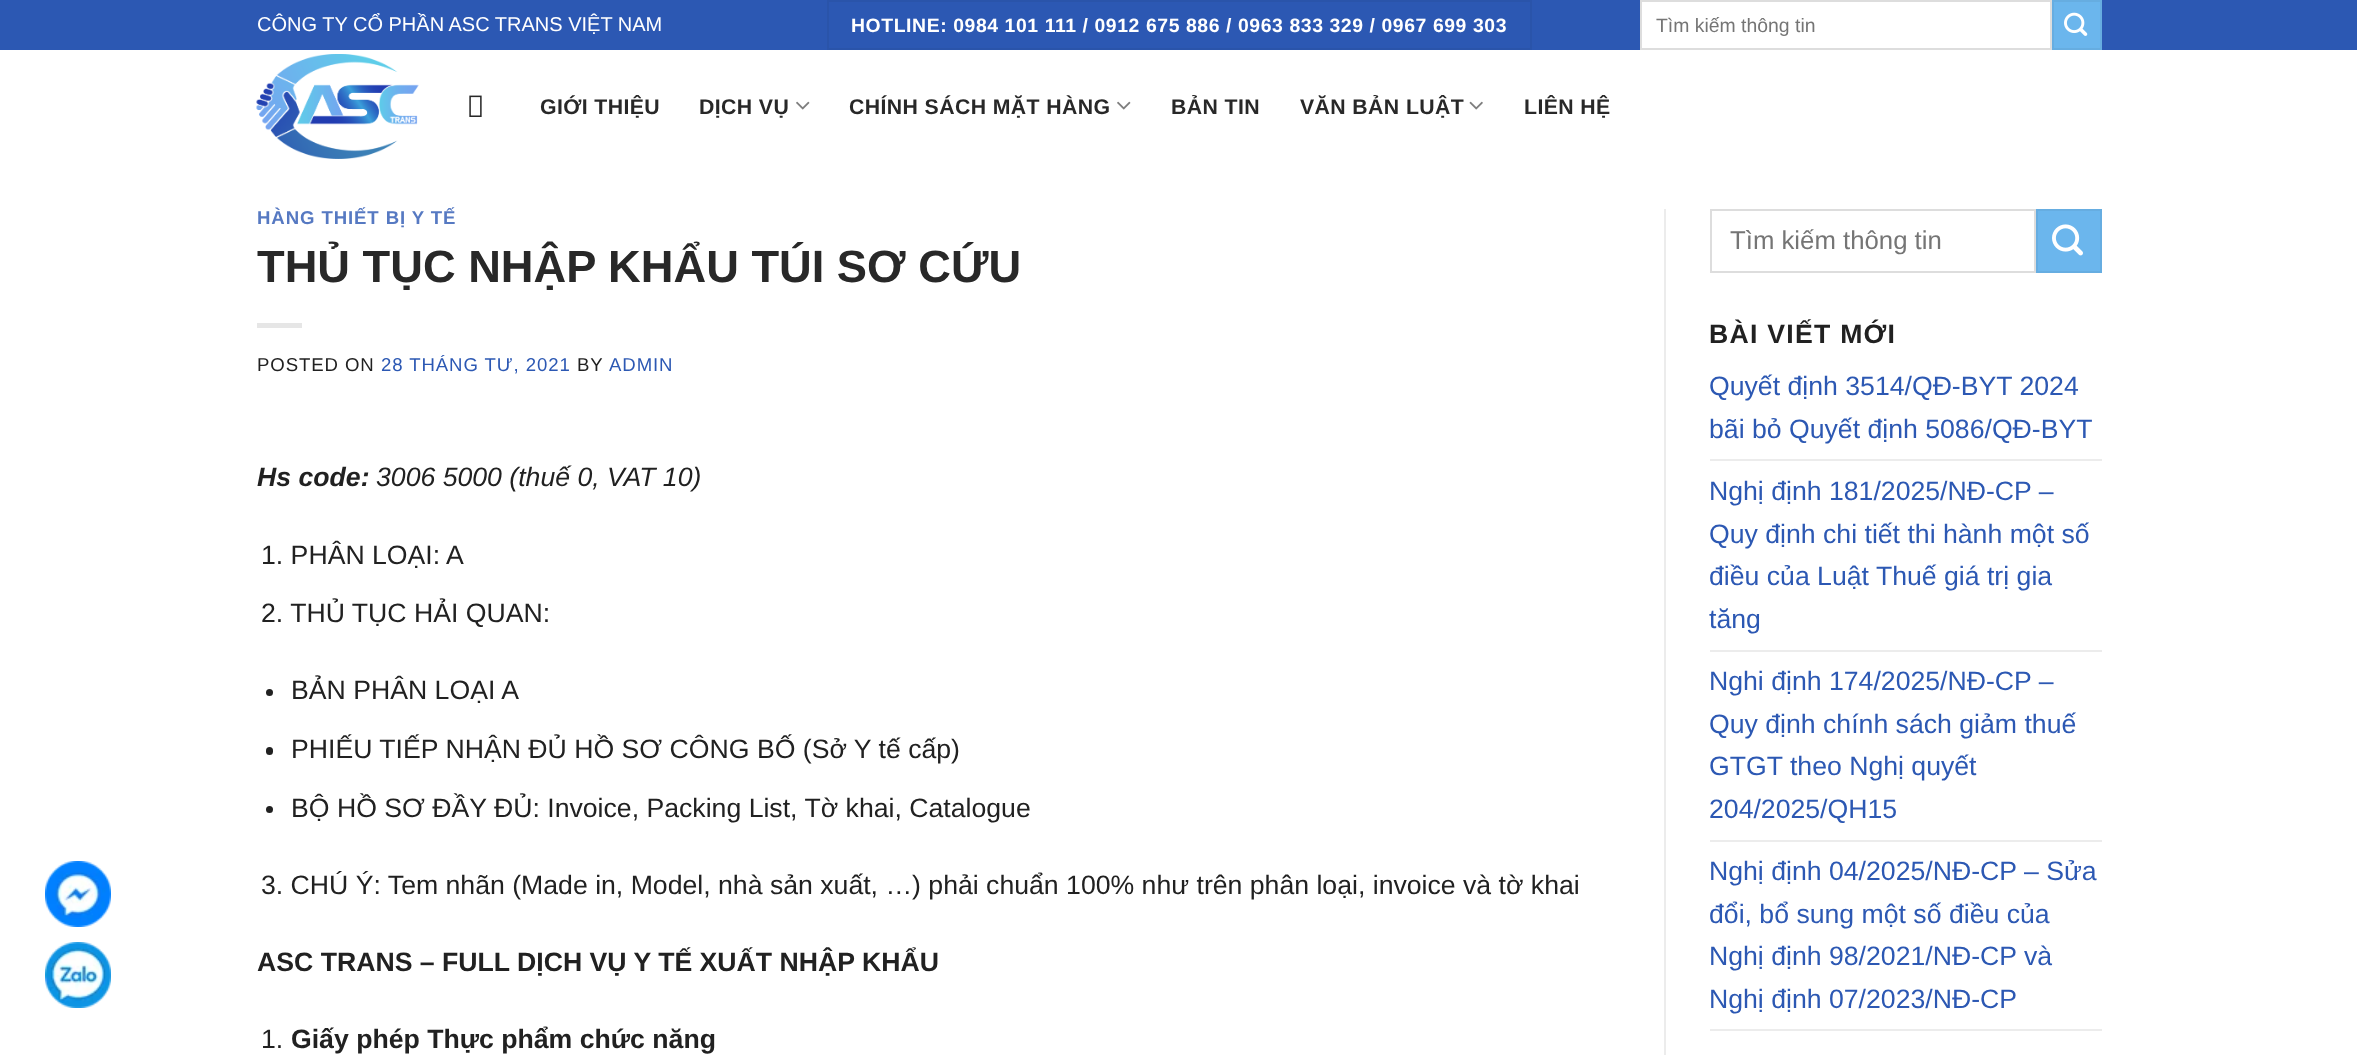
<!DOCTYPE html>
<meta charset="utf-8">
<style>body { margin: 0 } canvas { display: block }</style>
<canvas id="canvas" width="2357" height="1055"></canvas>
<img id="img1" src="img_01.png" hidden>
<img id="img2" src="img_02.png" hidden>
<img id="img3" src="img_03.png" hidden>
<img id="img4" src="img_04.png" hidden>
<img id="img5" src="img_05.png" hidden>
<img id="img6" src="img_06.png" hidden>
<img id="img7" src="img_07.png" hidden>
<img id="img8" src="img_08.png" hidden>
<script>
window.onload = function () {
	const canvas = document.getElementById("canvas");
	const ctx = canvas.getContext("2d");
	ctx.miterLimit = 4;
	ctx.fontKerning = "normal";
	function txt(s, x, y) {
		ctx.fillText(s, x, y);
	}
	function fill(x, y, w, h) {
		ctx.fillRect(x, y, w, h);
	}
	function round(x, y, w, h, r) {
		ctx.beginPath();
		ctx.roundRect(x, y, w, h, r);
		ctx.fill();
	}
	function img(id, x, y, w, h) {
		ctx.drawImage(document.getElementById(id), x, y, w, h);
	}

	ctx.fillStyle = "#FFFFFF";
	fill(0, 0, 2357, 1055);
	img("img1", 45, 861, 66, 66);
	img("img2", 45, 942, 66, 66);
	ctx.fillStyle = "#2C58B3";
	fill(0, 0, 2357, 50);
	ctx.strokeStyle = "#2A54AA";
	ctx.lineWidth = 2;
	ctx.strokeRect(828, 1, 703, 48);
	ctx.fillStyle = "#FFFFFF";
	ctx.beginPath();
	ctx.rect(1641, 1, 410, 48);
	ctx.fill();
	ctx.strokeStyle = "#DDDDDD";
	ctx.stroke();
	ctx.fillStyle = "#6BB6ED";
	ctx.beginPath();
	ctx.rect(2053, 1, 48, 48);
	ctx.fill();
	ctx.strokeStyle = "#66ADE1";
	ctx.stroke();
	img("img3", 2064, 12, 24, 24);
	img("img4", 256, 54, 163, 105);
	img("img5", 469, 95, 13, 22);
	img("img6", 796, 101, 14, 9);
	img("img6", 1117, 101, 14, 9);
	img("img7", 1469, 101, 14, 9);
	ctx.fillStyle = "#E6E6E6";
	fill(257, 323, 45, 5);
	ctx.fillStyle = "#212121";
	ctx.beginPath();
	ctx.arc(269.5, 692.5, 3.5, 0, Math.PI * 2);
	ctx.fill();
	round(266, 747, 7, 8, 3.5);
	ctx.beginPath();
	ctx.arc(269.5, 809.5, 3.5, 0, Math.PI * 2);
	ctx.fill();
	ctx.fillStyle = "#ECECEC";
	fill(1664, 209, 2, 846);
	ctx.strokeStyle = "#DDDDDD";
	ctx.strokeRect(1711, 210, 324, 62);
	ctx.fillStyle = "#6BB6ED";
	ctx.beginPath();
	ctx.rect(2037, 210, 64, 62);
	ctx.fill();
	ctx.strokeStyle = "#66ADE1";
	ctx.stroke();
	img("img8", 2052, 224, 31, 32);
	ctx.fillStyle = "#ECECEC";
	fill(1710, 459, 392, 2);
	fill(1710, 650, 392, 2);
	fill(1710, 840, 392, 2);
	fill(1710, 1029, 392, 2);
	ctx.font = "20px Liberation Sans";
	ctx.fillStyle = "#FFFFFF";
	txt("CÔNG TY CỔ PHẦN ASC TRANS VIỆT NAM", 257, 31);
	ctx.letterSpacing = "0.58px";
	ctx.font = "bold 19.4px Liberation Sans";
	txt("HOTLINE: 0984 101 111 / 0912 675 886 / 0963 833 329 / 0967 699 303", 851, 32);
	ctx.letterSpacing = "0px";
	ctx.font = "19.4px Liberation Sans";
	ctx.fillStyle = "#757575";
	txt("Tìm kiếm thông tin", 1656, 32);
	ctx.letterSpacing = "0.4px";
	ctx.font = "bold 21.25px Liberation Sans";
	ctx.fillStyle = "#282828";
	txt("GIỚI THIỆU", 540, 114);
	txt("DỊCH VỤ", 699, 114);
	txt("CHÍNH SÁCH MẶT HÀNG", 849, 114);
	txt("BẢN TIN", 1171, 114);
	txt("VĂN BẢN LUẬT", 1300, 114);
	txt("LIÊN HỆ", 1524, 114);
	ctx.letterSpacing = "0.9px";
	ctx.font = "bold 18.6px Liberation Sans";
	ctx.fillStyle = "#5679C2";
	txt("HÀNG THIẾT BỊ Y TẾ", 257, 224);
	ctx.letterSpacing = "0px";
	ctx.font = "bold 45.25px Liberation Sans";
	ctx.fillStyle = "#282828";
	txt("THỦ TỤC NHẬP KHẨU TÚI SƠ CỨU", 257, 282);
	ctx.letterSpacing = "0.9px";
	ctx.font = "18.6px Liberation Sans";
	ctx.fillStyle = "#212121";
	txt("POSTED ON", 257, 371);
	ctx.fillStyle = "#2C58B3";
	txt("28 THÁNG TƯ, 2021", 381, 371);
	ctx.fillStyle = "#212121";
	txt("BY", 577, 371);
	ctx.fillStyle = "#2C58B3";
	txt("ADMIN", 609, 371);
	ctx.letterSpacing = "0px";
	ctx.font = "italic bold 26.65px Liberation Sans";
	ctx.fillStyle = "#212121";
	txt("Hs code:", 257, 486);
	ctx.font = "italic 26.65px Liberation Sans";
	txt("3006 5000 (thuế 0, VAT 10)", 376, 486);
	ctx.font = "26.65px Liberation Sans";
	txt("1. PHÂN LOẠI: A", 261, 564);
	txt("2. THỦ TỤC HẢI QUAN:", 261, 622);
	txt("BẢN PHÂN LOẠI A", 291, 699);
	txt("PHIẾU TIẾP NHẬN ĐỦ HỒ SƠ CÔNG BỐ (Sở Y tế cấp)", 291, 758);
	txt("BỘ HỒ SƠ ĐẦY ĐỦ: Invoice, Packing List, Tờ khai, Catalogue", 291, 817);
	txt("3. CHÚ Ý: Tem nhãn (Made in, Model, nhà sản xuất, …) phải chuẩn 100% như trên phân loại, invoice và tờ khai", 261, 894);
	ctx.font = "bold 26.65px Liberation Sans";
	txt("ASC TRANS – FULL DỊCH VỤ Y TẾ XUẤT NHẬP KHẨU", 257, 971);
	ctx.font = "26.65px Liberation Sans";
	txt("1.", 261, 1048);
	ctx.font = "bold 26.65px Liberation Sans";
	txt("Giấy phép Thực phẩm chức năng", 291, 1048);
	ctx.font = "25.75px Liberation Sans";
	ctx.fillStyle = "#757575";
	txt("Tìm kiếm thông tin", 1730, 249);
	ctx.letterSpacing = "1.25px";
	ctx.font = "bold 26.65px Liberation Sans";
	ctx.fillStyle = "#212121";
	txt("BÀI VIẾT MỚI", 1709, 343);
	ctx.letterSpacing = "0px";
	ctx.font = "26.65px Liberation Sans";
	ctx.fillStyle = "#2C58B3";
	txt("Quyết định 3514/QĐ-BYT 2024", 1709, 395);
	txt("bãi bỏ Quyết định 5086/QĐ-BYT", 1709, 438);
	txt("Nghị định 181/2025/NĐ-CP –", 1709, 500);
	txt("Quy định chi tiết thi hành một số", 1709, 543);
	txt("điều của Luật Thuế giá trị gia", 1709, 585);
	txt("tăng", 1709, 628);
	txt("Nghi định 174/2025/NĐ-CP –", 1709, 690);
	txt("Quy định chính sách giảm thuế", 1709, 733);
	txt("GTGT theo Nghị quyết", 1709, 775);
	txt("204/2025/QH15", 1709, 818);
	txt("Nghị định 04/2025/NĐ-CP – Sửa", 1709, 880);
	txt("đổi, bổ sung một số điều của", 1709, 923);
	txt("Nghị định 98/2021/NĐ-CP và", 1709, 965);
	txt("Nghị định 07/2023/NĐ-CP", 1709, 1008);
};
</script>
